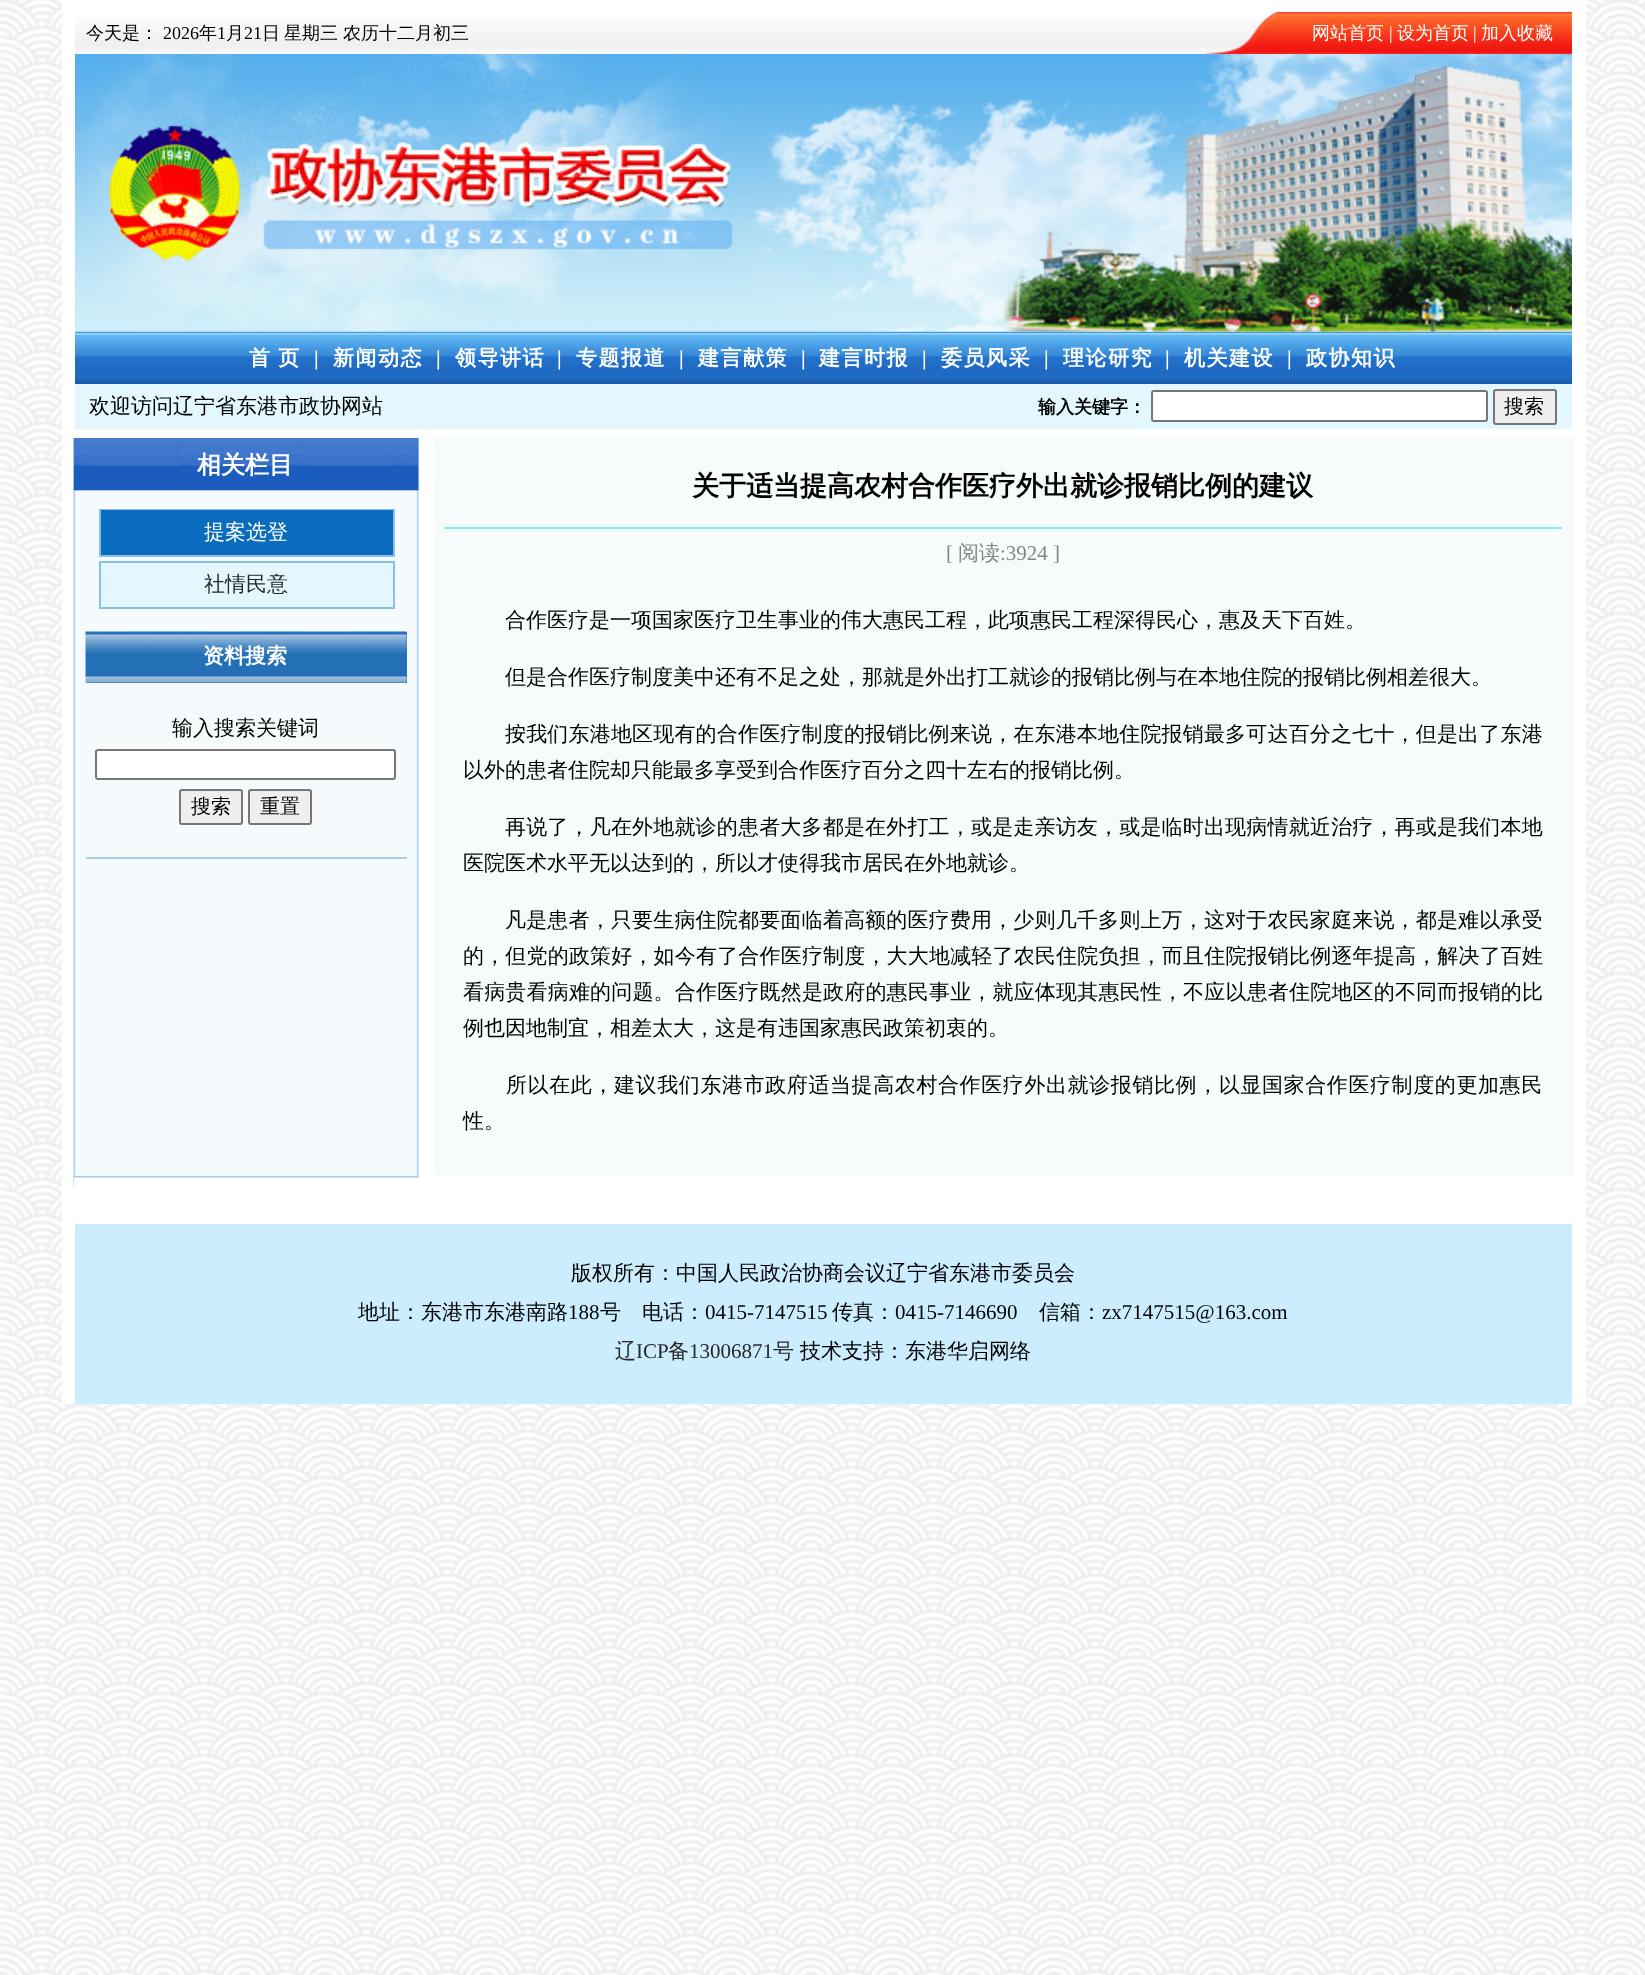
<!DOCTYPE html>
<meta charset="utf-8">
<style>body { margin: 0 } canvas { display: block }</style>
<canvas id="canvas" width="1645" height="1975"></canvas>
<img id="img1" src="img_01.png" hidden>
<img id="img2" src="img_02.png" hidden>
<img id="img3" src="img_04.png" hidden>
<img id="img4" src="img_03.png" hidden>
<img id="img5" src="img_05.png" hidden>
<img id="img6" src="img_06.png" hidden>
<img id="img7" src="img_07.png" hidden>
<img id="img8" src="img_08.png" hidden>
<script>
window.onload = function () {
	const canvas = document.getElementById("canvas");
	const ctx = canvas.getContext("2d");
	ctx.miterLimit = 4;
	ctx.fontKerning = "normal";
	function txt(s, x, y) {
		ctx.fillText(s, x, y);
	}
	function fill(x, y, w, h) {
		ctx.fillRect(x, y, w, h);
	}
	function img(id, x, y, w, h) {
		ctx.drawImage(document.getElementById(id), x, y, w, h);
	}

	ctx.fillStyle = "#FFFFFF";
	fill(0, 0, 1645, 1975);
	img("img1", 0, 0, 1645, 1975);
	fill(62, 0, 1524, 1404);
	img("img2", 75, 12, 1497, 42);
	img("img3", 75, 331, 1497, 53);
	img("img4", 75, 54, 1497, 278);
	ctx.fillStyle = "#E2F8FE";
	fill(75, 384, 1497, 45);
	ctx.fillStyle = "#FFFFFF";
	ctx.beginPath();
	ctx.roundRect(1152, 391, 335, 30, 2);
	ctx.fill();
	ctx.strokeStyle = "#767676";
	ctx.lineWidth = 2;
	ctx.stroke();
	ctx.fillStyle = "#EFEFEF";
	ctx.beginPath();
	ctx.roundRect(1494, 390, 62, 34, 2);
	ctx.fill();
	ctx.stroke();
	img("img5", 73, 438, 346, 749);
	img("img6", 73, 438, 346, 53);
	ctx.strokeStyle = "#89BFEB";
	ctx.strokeRect(100, 510, 294, 46);
	ctx.fillStyle = "#096CBD";
	fill(101, 510, 292, 45);
	ctx.fillStyle = "#E2F8FE";
	ctx.beginPath();
	ctx.rect(100, 562, 294, 46);
	ctx.fill();
	ctx.stroke();
	ctx.fillStyle = "#2375B3";
	fill(86, 632, 321, 51);
	img("img7", 85, 631, 322, 52);
	ctx.fillStyle = "#A9CFE5";
	fill(86, 857, 321, 2);
	ctx.fillStyle = "#FFFFFF";
	ctx.beginPath();
	ctx.roundRect(96, 750, 299, 29, 2);
	ctx.fill();
	ctx.strokeStyle = "#767676";
	ctx.stroke();
	ctx.fillStyle = "#EFEFEF";
	ctx.beginPath();
	ctx.roundRect(180, 790, 62, 34, 2);
	ctx.fill();
	ctx.stroke();
	ctx.beginPath();
	ctx.roundRect(249, 790, 62, 34, 2);
	ctx.fill();
	ctx.stroke();
	ctx.fillStyle = "#F6FCFC";
	fill(434, 438, 1140, 738);
	ctx.fillStyle = "#88ECFD";
	fill(444, 527, 1118, 2);
	img("img8", 73, 1176, 345, 2);
	ctx.fillStyle = "#FFFFFF";
	fill(74, 1178, 345, 9);
	ctx.fillStyle = "#CBEDFE";
	fill(75, 1224, 1497, 180);
	ctx.font = "500 18px WenQuanYi Zen Hei";
	ctx.fillStyle = "#000000";
	txt("今天是：", 86, 39);
	ctx.font = "18px Liberation Serif";
	txt("2026", 163, 39);
	ctx.font = "500 18px WenQuanYi Zen Hei";
	txt("年", 199, 39);
	ctx.font = "18px Liberation Serif";
	txt("1", 217, 39);
	ctx.font = "500 18px WenQuanYi Zen Hei";
	txt("月", 226, 39);
	ctx.font = "18px Liberation Serif";
	txt("21", 244, 39);
	ctx.font = "500 18px WenQuanYi Zen Hei";
	txt("日", 262, 39);
	txt("星期三", 284, 39);
	txt("农历十二月初三", 343, 39);
	ctx.fillStyle = "#FFFFFF";
	txt("网站首页", 1312, 39);
	ctx.font = "18px Liberation Serif";
	txt("|", 1389, 39);
	ctx.font = "500 18px WenQuanYi Zen Hei";
	txt("设为首页", 1397, 39);
	ctx.font = "18px Liberation Serif";
	txt("|", 1473, 39);
	ctx.font = "500 18px WenQuanYi Zen Hei";
	txt("加入收藏", 1481, 39);
	ctx.letterSpacing = "1.5px";
	ctx.wordSpacing = "-1px";
	ctx.font = "bold 21px WenQuanYi Zen Hei";
	txt("首 页", 249, 365);
	ctx.wordSpacing = "0px";
	ctx.font = "bold 21px Liberation Serif";
	txt("|", 314, 365);
	ctx.font = "bold 21px WenQuanYi Zen Hei";
	txt("新闻动态", 333, 365);
	ctx.font = "bold 21px Liberation Serif";
	txt("|", 436, 365);
	ctx.font = "bold 21px WenQuanYi Zen Hei";
	txt("领导讲话", 455, 365);
	ctx.font = "bold 21px Liberation Serif";
	txt("|", 557, 365);
	ctx.font = "bold 21px WenQuanYi Zen Hei";
	txt("专题报道", 576, 365);
	ctx.font = "bold 21px Liberation Serif";
	txt("|", 679, 365);
	ctx.font = "bold 21px WenQuanYi Zen Hei";
	txt("建言献策", 698, 365);
	ctx.font = "bold 21px Liberation Serif";
	txt("|", 801, 365);
	ctx.font = "bold 21px WenQuanYi Zen Hei";
	txt("建言时报", 819, 365);
	ctx.font = "bold 21px Liberation Serif";
	txt("|", 922, 365);
	ctx.font = "bold 21px WenQuanYi Zen Hei";
	txt("委员风采", 941, 365);
	ctx.font = "bold 21px Liberation Serif";
	txt("|", 1044, 365);
	ctx.font = "bold 21px WenQuanYi Zen Hei";
	txt("理论研究", 1063, 365);
	ctx.font = "bold 21px Liberation Serif";
	txt("|", 1165, 365);
	ctx.font = "bold 21px WenQuanYi Zen Hei";
	txt("机关建设", 1184, 365);
	ctx.font = "bold 21px Liberation Serif";
	txt("|", 1287, 365);
	ctx.font = "bold 21px WenQuanYi Zen Hei";
	txt("政协知识", 1306, 365);
	ctx.letterSpacing = "0px";
	ctx.font = "500 21px WenQuanYi Zen Hei";
	ctx.fillStyle = "#000000";
	txt("欢迎访问辽宁省东港市政协网站", 89, 413);
	ctx.font = "bold 18px WenQuanYi Zen Hei";
	txt("输入关键字：", 1038, 413);
	ctx.font = "500 20px WenQuanYi Zen Hei";
	txt("搜索", 1504, 413);
	ctx.font = "bold 24px WenQuanYi Zen Hei";
	ctx.fillStyle = "#FFFFFF";
	txt("相关栏目", 197, 473);
	ctx.font = "500 21px WenQuanYi Zen Hei";
	txt("提案选登", 204, 539);
	ctx.fillStyle = "#272727";
	txt("社情民意", 204, 591);
	ctx.font = "bold 21px WenQuanYi Zen Hei";
	ctx.fillStyle = "#FFFFFF";
	txt("资料搜索", 203, 663);
	ctx.font = "500 21px WenQuanYi Zen Hei";
	ctx.fillStyle = "#000000";
	txt("输入搜索关键词", 172, 735);
	ctx.font = "500 20px WenQuanYi Zen Hei";
	txt("搜索", 191, 813);
	txt("重置", 260, 813);
	ctx.font = "bold 27px WenQuanYi Zen Hei";
	txt("关于适当提高农村合作医疗外出就诊报销比例的建议", 692, 495);
	ctx.font = "21px Liberation Serif";
	ctx.fillStyle = "#868686";
	txt("[", 946, 560);
	ctx.font = "500 21px WenQuanYi Zen Hei";
	txt("阅读", 958, 560);
	ctx.font = "21px Liberation Serif";
	txt(":3924 ]", 1000, 560);
	ctx.font = "500 21px WenQuanYi Zen Hei";
	ctx.fillStyle = "#000000";
	txt("合作医疗是一项国家医疗卫生事业的伟大惠民工程，此项惠民工程深得民心，惠及天下百姓。", 505, 627);
	txt("但是合作医疗制度美中还有不足之处，那就是外出打工就诊的报销比例与在本地住院的报销比例相差很大。", 505, 684);
	ctx.letterSpacing = "0.18px";
	txt("按我们东港地区现有的合作医疗制度的报销比例来说，在东港本地住院报销最多可达百分之七十，但是出了东港", 505, 741);
	ctx.letterSpacing = "0px";
	txt("以外的患者住院却只能最多享受到合作医疗百分之四十左右的报销比例。", 463, 777);
	ctx.letterSpacing = "0.18px";
	txt("再说了，凡在外地就诊的患者大多都是在外打工，或是走亲访友，或是临时出现病情就近治疗，再或是我们本地", 505, 834);
	ctx.letterSpacing = "0px";
	txt("医院医术水平无以达到的，所以才使得我市居民在外地就诊。", 463, 870);
	ctx.letterSpacing = "0.18px";
	txt("凡是患者，只要生病住院都要面临着高额的医疗费用，少则几千多则上万，这对于农民家庭来说，都是难以承受", 505, 927);
	txt("的，但党的政策好，如今有了合作医疗制度，大大地减轻了农民住院负担，而且住院报销比例逐年提高，解决了百姓", 463, 963);
	txt("看病贵看病难的问题。合作医疗既然是政府的惠民事业，就应体现其惠民性，不应以患者住院地区的不同而报销的比", 463, 999);
	ctx.letterSpacing = "0px";
	txt("例也因地制宜，相差太大，这是有违国家惠民政策初衷的。", 463, 1035);
	ctx.letterSpacing = "0.6px";
	txt("所以在此，建议我们东港市政府适当提高农村合作医疗外出就诊报销比例，以显国家合作医疗制度的更加惠民", 506, 1092);
	ctx.letterSpacing = "0px";
	txt("性。", 463, 1128);
	txt("版权所有：中国人民政治协商会议辽宁省东港市委员会", 571, 1280);
	txt("地址：东港市东港南路", 358, 1319);
	ctx.font = "21px Liberation Serif";
	txt("188", 568, 1319);
	ctx.font = "500 21px WenQuanYi Zen Hei";
	txt("号　电话：", 600, 1319);
	ctx.font = "21px Liberation Serif";
	txt("0415-7147515", 705, 1319);
	ctx.font = "500 21px WenQuanYi Zen Hei";
	txt("传真：", 832, 1319);
	ctx.font = "21px Liberation Serif";
	txt("0415-7146690", 895, 1319);
	ctx.font = "500 21px WenQuanYi Zen Hei";
	txt("信箱：", 1039, 1319);
	ctx.font = "21px Liberation Serif";
	txt("zx7147515@163.com", 1102, 1319);
	ctx.font = "500 21px WenQuanYi Zen Hei";
	ctx.fillStyle = "#272727";
	txt("辽", 615, 1358);
	ctx.font = "21px Liberation Serif";
	txt("ICP", 636, 1358);
	ctx.font = "500 21px WenQuanYi Zen Hei";
	txt("备", 668, 1358);
	ctx.font = "21px Liberation Serif";
	txt("13006871", 689, 1358);
	ctx.font = "500 21px WenQuanYi Zen Hei";
	txt("号", 773, 1358);
	ctx.fillStyle = "#000000";
	txt("技术支持：东港华启网络", 800, 1358);
};
</script>
